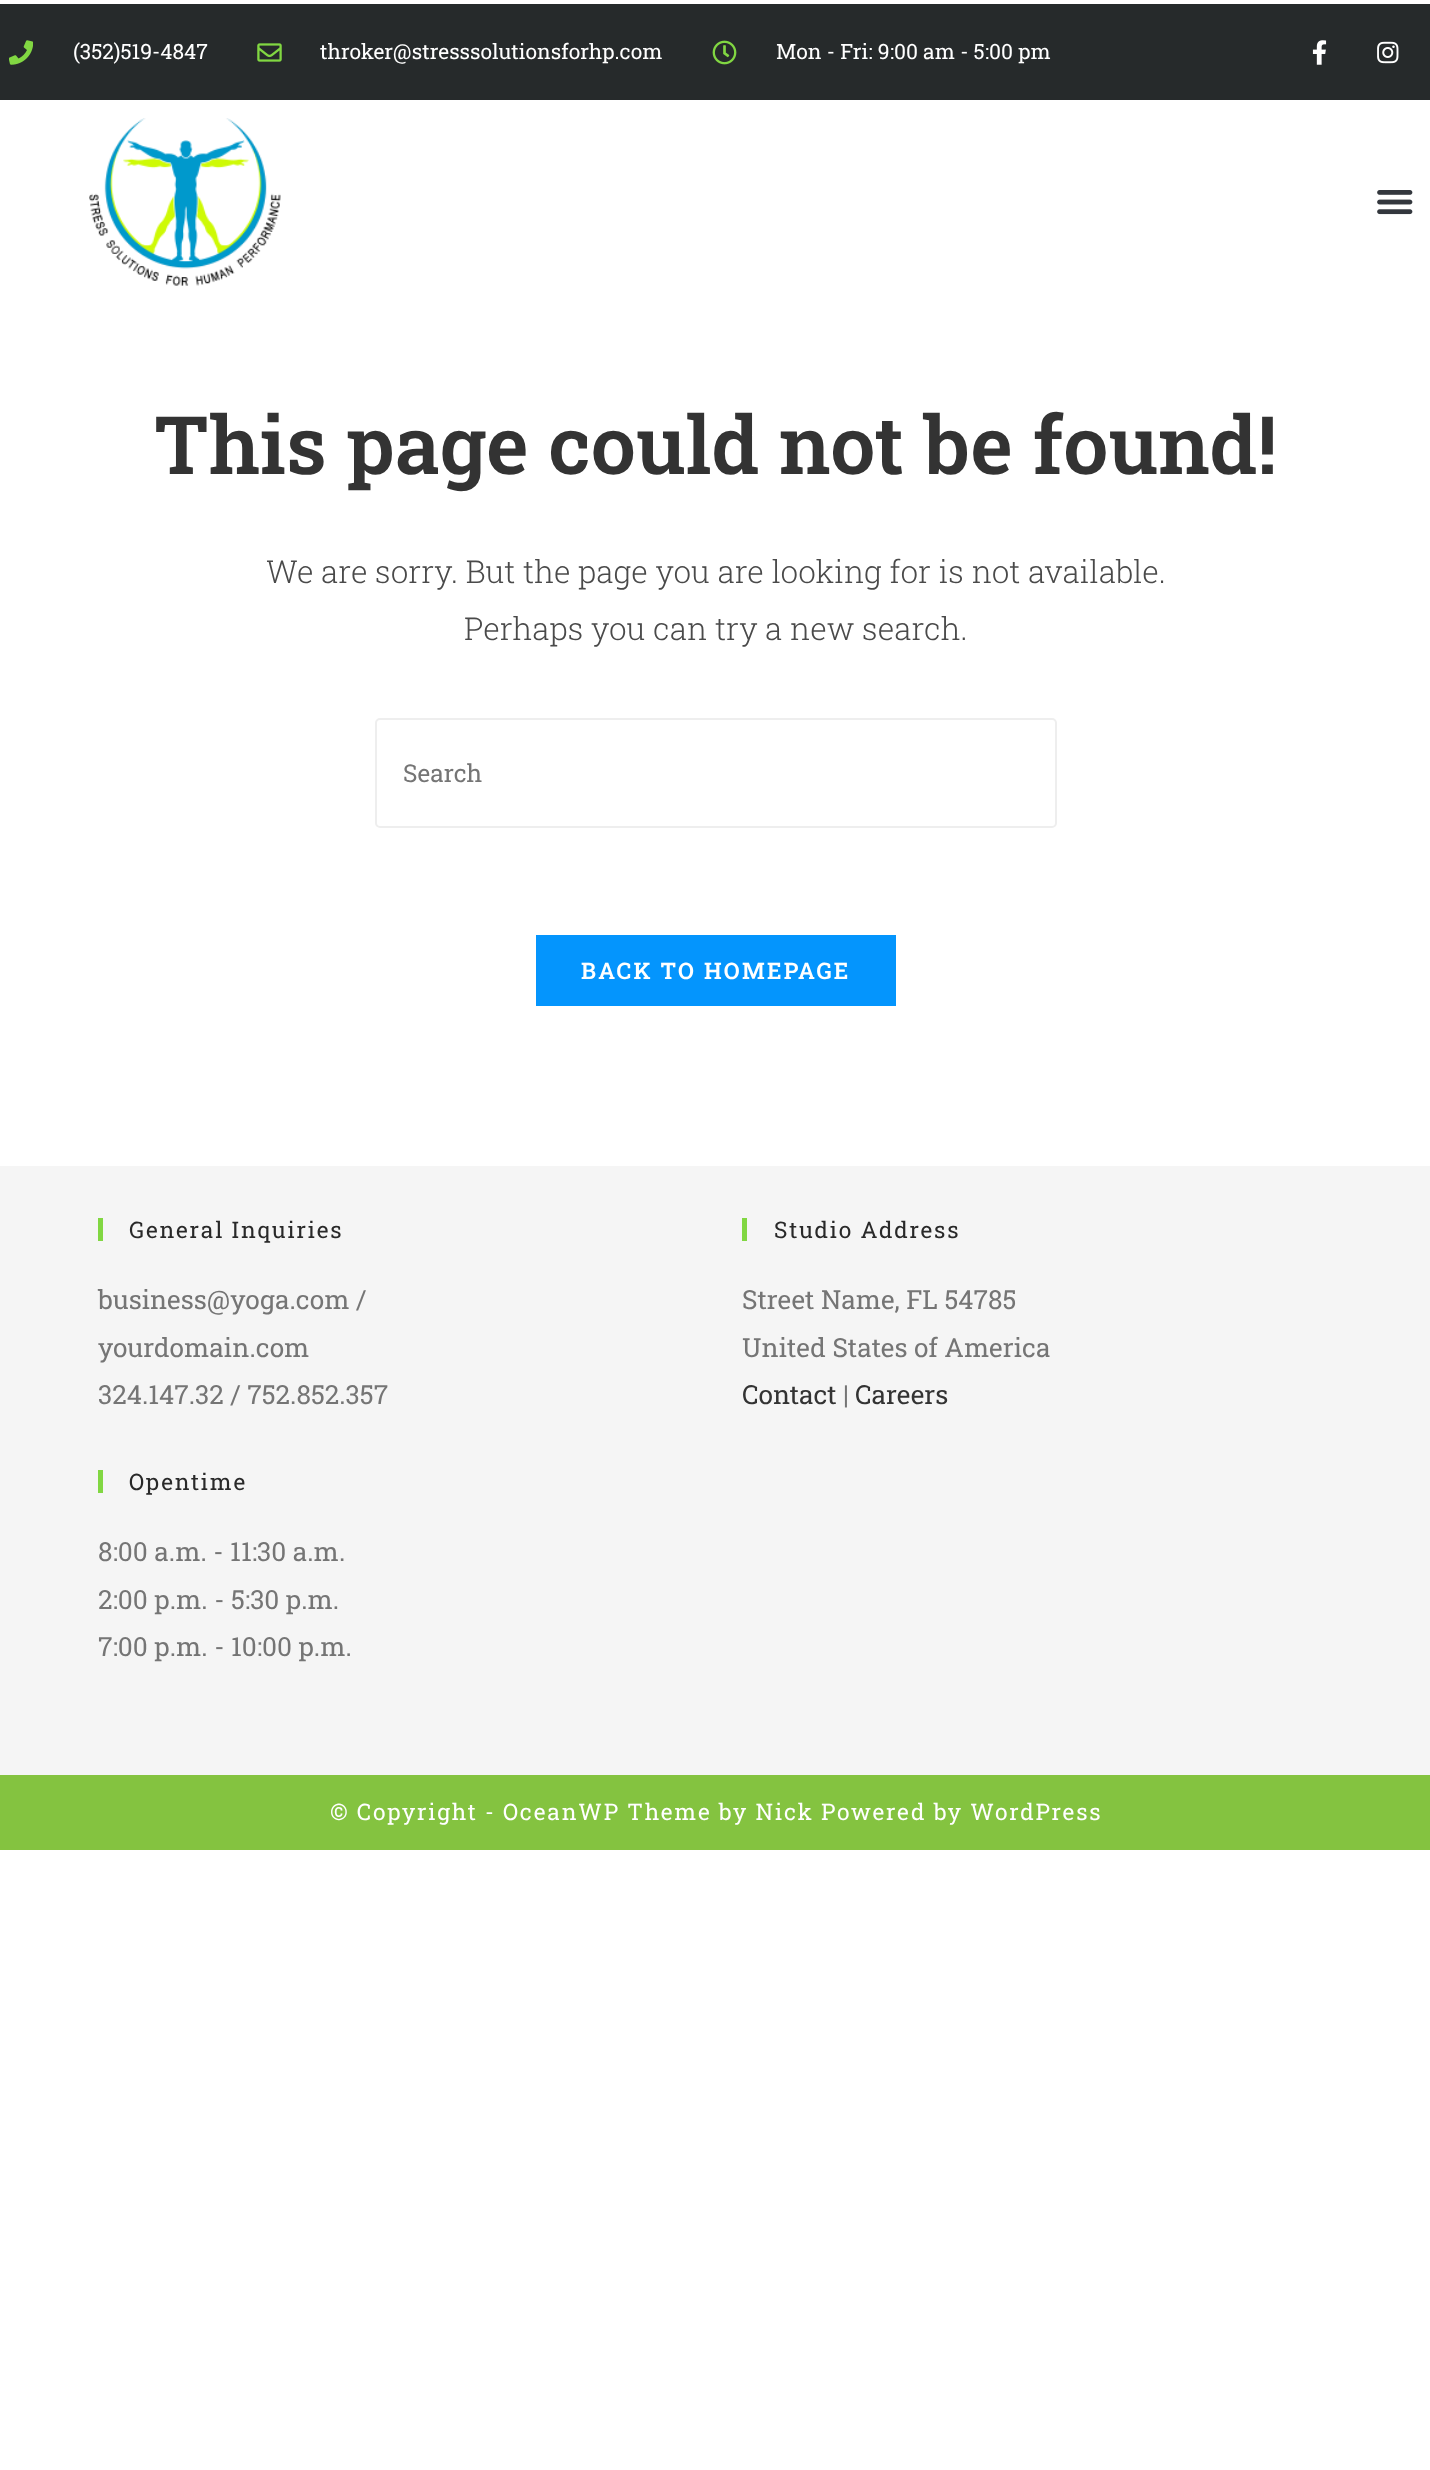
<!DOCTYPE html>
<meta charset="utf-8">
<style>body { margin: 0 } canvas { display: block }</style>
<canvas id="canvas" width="1430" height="2470"></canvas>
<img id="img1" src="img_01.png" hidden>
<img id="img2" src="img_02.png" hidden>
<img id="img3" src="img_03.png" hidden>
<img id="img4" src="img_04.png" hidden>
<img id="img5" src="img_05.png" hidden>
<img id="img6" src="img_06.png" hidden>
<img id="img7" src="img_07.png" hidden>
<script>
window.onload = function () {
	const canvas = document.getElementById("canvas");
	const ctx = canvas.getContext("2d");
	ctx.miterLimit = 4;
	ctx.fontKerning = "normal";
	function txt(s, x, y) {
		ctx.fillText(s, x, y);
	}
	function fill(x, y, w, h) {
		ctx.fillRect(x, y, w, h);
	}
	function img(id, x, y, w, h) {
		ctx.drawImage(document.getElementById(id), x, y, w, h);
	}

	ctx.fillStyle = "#FFFFFF";
	fill(0, 0, 1430, 2470);
	ctx.fillStyle = "#262A2B";
	fill(0, 4, 1430, 96);
	img("img1", 9, 40, 24, 25);
	img("img2", 257, 43, 25, 19);
	img("img3", 712, 40, 25, 25);
	img("img4", 1312, 40, 15, 25);
	img("img5", 1377, 41, 22, 23);
	img("img6", 89, 118, 192, 168);
	img("img7", 1377, 190, 36, 25);
	ctx.beginPath();
	ctx.roundRect(376, 719, 680, 108, 4);
	ctx.strokeStyle = "#EEEEEE";
	ctx.lineWidth = 2;
	ctx.stroke();
	ctx.fillStyle = "#0495FD";
	fill(536, 935, 360, 71);
	ctx.fillStyle = "#F5F5F5";
	fill(0, 1166, 1430, 609);
	ctx.fillStyle = "#81D742";
	fill(98, 1218, 5, 23);
	fill(742, 1218, 5, 23);
	fill(98, 1470, 5, 23);
	ctx.fillStyle = "#84C340";
	fill(0, 1775, 1430, 75);
	ctx.font = "21px Roboto Slab";
	ctx.fillStyle = "#FFFFFF";
	txt("(352)519-4847", 73, 59);
	txt("throker@stresssolutionsforhp.com", 320, 59);
	txt("Mon - Fri: 9:00 am - 5:00 pm", 776, 59);
	ctx.font = "600 80.5px Roboto Slab";
	ctx.fillStyle = "#333333";
	txt("This page could not be found!", 154, 474);
	ctx.font = "300 31.5px Roboto Slab";
	ctx.fillStyle = "#4A4A4A";
	txt("We are sorry. But the page you are looking for is not available.", 266, 583);
	txt("Perhaps you can try a new search.", 464, 640);
	ctx.font = "24.5px Roboto Slab";
	ctx.fillStyle = "#757575";
	txt("Search", 403, 782);
	ctx.letterSpacing = "2.25px";
	ctx.font = "600 22.75px Roboto Slab";
	ctx.fillStyle = "#FFFFFF";
	txt("BACK TO HOMEPAGE", 581, 979);
	ctx.letterSpacing = "1.75px";
	ctx.font = "22.75px Roboto Slab";
	ctx.fillStyle = "#292929";
	txt("General Inquiries", 129, 1238);
	ctx.letterSpacing = "0px";
	ctx.font = "26.25px Roboto Slab";
	ctx.fillStyle = "#757575";
	txt("business@yoga.com /", 98, 1309);
	txt("yourdomain.com", 98, 1357);
	txt("324.147.32 / 752.852.357", 98, 1404);
	ctx.letterSpacing = "1.75px";
	ctx.font = "22.75px Roboto Slab";
	ctx.fillStyle = "#292929";
	txt("Studio Address", 774, 1238);
	ctx.letterSpacing = "0px";
	ctx.font = "26.25px Roboto Slab";
	ctx.fillStyle = "#757575";
	txt("Street Name, FL 54785", 742, 1309);
	txt("United States of America", 742, 1357);
	ctx.fillStyle = "#333333";
	txt("Contact", 742, 1404);
	ctx.fillStyle = "#757575";
	txt("|", 843, 1404);
	ctx.fillStyle = "#333333";
	txt("Careers", 855, 1404);
	ctx.letterSpacing = "1.75px";
	ctx.font = "22.75px Roboto Slab";
	ctx.fillStyle = "#292929";
	txt("Opentime", 129, 1490);
	ctx.letterSpacing = "0px";
	ctx.font = "26.25px Roboto Slab";
	ctx.fillStyle = "#757575";
	txt("8:00 a.m. - 11:30 a.m.", 98, 1561);
	txt("2:00 p.m. - 5:30 p.m.", 98, 1609);
	txt("7:00 p.m. - 10:00 p.m.", 98, 1656);
	ctx.letterSpacing = "1.75px";
	ctx.font = "22.75px Roboto Slab";
	ctx.fillStyle = "#FFFFFF";
	txt("© Copyright - OceanWP Theme by Nick Powered by WordPress", 330, 1820);
};
</script>
